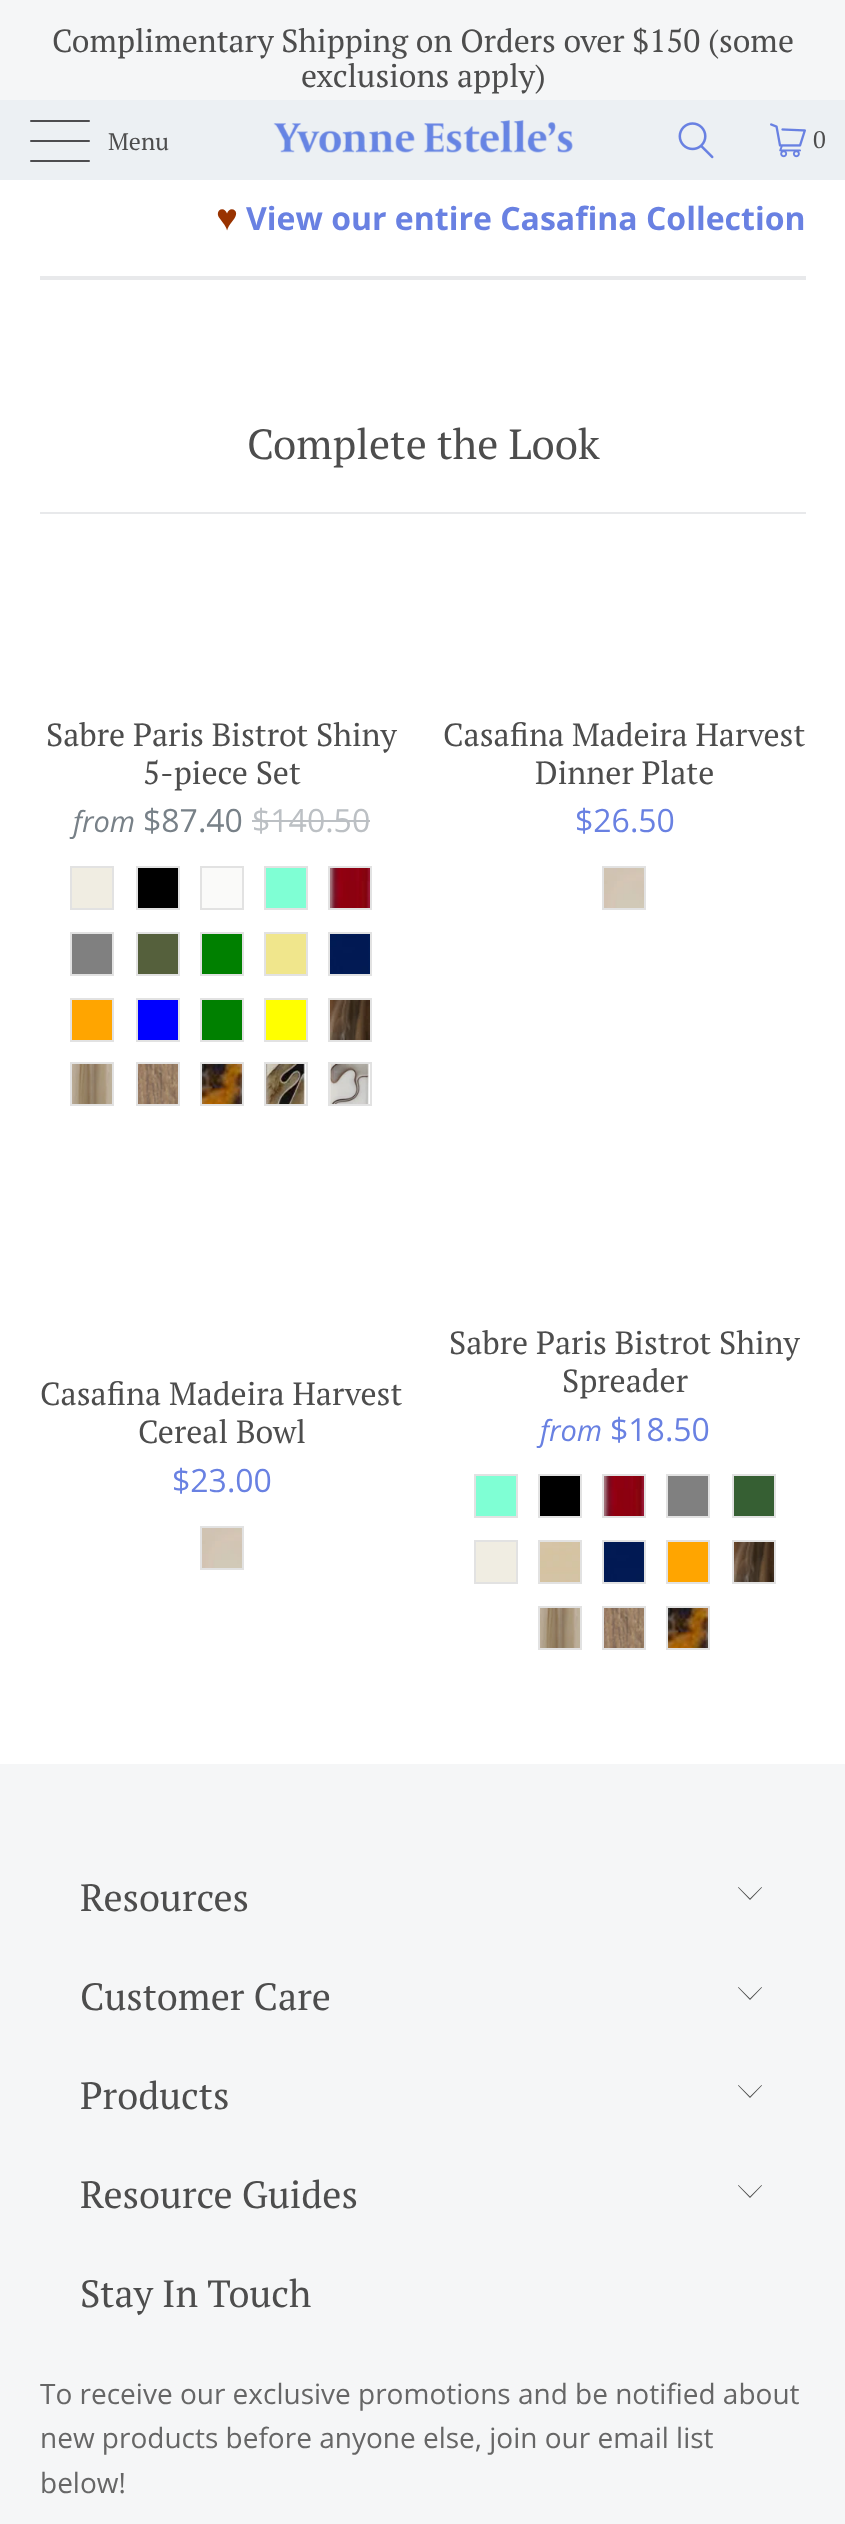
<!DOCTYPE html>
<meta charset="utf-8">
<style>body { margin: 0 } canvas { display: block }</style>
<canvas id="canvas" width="845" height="2524"></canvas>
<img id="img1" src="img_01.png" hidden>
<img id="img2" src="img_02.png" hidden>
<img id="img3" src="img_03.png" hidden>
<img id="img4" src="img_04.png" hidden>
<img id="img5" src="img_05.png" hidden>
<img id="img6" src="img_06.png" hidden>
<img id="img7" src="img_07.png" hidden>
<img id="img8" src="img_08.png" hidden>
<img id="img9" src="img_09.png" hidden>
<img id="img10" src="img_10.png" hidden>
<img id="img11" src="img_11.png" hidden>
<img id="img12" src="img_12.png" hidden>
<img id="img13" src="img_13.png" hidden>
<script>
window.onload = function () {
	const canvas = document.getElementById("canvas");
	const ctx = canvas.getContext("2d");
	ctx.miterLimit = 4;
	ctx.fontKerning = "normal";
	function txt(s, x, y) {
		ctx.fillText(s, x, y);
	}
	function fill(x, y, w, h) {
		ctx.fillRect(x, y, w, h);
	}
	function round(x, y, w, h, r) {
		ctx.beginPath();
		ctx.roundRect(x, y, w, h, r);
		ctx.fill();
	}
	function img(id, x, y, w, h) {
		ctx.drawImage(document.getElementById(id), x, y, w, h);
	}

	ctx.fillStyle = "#FFFFFF";
	fill(0, 0, 845, 2524);
	ctx.fillStyle = "#F5F6F7";
	fill(0, 0, 845, 100);
	ctx.fillStyle = "#ECF0F3";
	fill(0, 100, 845, 80);
	ctx.fillStyle = "#4D4D4F";
	round(30, 120, 60, 2, 1);
	round(30, 140, 60, 2, 1);
	round(30, 160, 60, 2, 1);
	img("img1", 273, 120, 300, 33);
	img("img2", 678, 122, 36, 37);
	img("img3", 770, 123, 36, 35);
	ctx.fillStyle = "#E8E9EB";
	fill(40, 276, 766, 4);
	fill(40, 512, 766, 2);
	ctx.fillStyle = "#BCC0C4";
	fill(252, 820, 118, 2);
	ctx.fillStyle = "#F0EDE2";
	ctx.beginPath();
	ctx.rect(71, 867, 42, 42);
	ctx.fill();
	ctx.strokeStyle = "#E2E2E2";
	ctx.lineWidth = 2;
	ctx.stroke();
	ctx.fillStyle = "#000000";
	ctx.beginPath();
	ctx.rect(137, 867, 42, 42);
	ctx.fill();
	ctx.stroke();
	ctx.fillStyle = "#FAFAF9";
	ctx.beginPath();
	ctx.rect(201, 867, 42, 42);
	ctx.fill();
	ctx.stroke();
	ctx.fillStyle = "#7FFFD4";
	ctx.beginPath();
	ctx.rect(265, 867, 42, 42);
	ctx.fill();
	ctx.stroke();
	img("img4", 330, 868, 40, 40);
	ctx.strokeRect(329, 867, 42, 42);
	ctx.fillStyle = "#808080";
	ctx.beginPath();
	ctx.rect(71, 933, 42, 42);
	ctx.fill();
	ctx.stroke();
	ctx.fillStyle = "#55603C";
	ctx.beginPath();
	ctx.rect(137, 933, 42, 42);
	ctx.fill();
	ctx.stroke();
	ctx.fillStyle = "#008000";
	ctx.beginPath();
	ctx.rect(201, 933, 42, 42);
	ctx.fill();
	ctx.stroke();
	ctx.fillStyle = "#F0E68C";
	ctx.beginPath();
	ctx.rect(265, 933, 42, 42);
	ctx.fill();
	ctx.stroke();
	img("img5", 330, 934, 40, 40);
	ctx.strokeRect(329, 933, 42, 42);
	ctx.fillStyle = "#FFA500";
	ctx.beginPath();
	ctx.rect(71, 999, 42, 42);
	ctx.fill();
	ctx.stroke();
	ctx.fillStyle = "#0000FF";
	ctx.beginPath();
	ctx.rect(137, 999, 42, 42);
	ctx.fill();
	ctx.stroke();
	ctx.fillStyle = "#008000";
	ctx.beginPath();
	ctx.rect(201, 999, 42, 42);
	ctx.fill();
	ctx.stroke();
	ctx.fillStyle = "#FFFF00";
	ctx.beginPath();
	ctx.rect(265, 999, 42, 42);
	ctx.fill();
	ctx.stroke();
	img("img6", 330, 1000, 40, 40);
	ctx.strokeRect(329, 999, 42, 42);
	img("img7", 72, 1064, 40, 40);
	ctx.strokeRect(71, 1063, 42, 42);
	img("img8", 138, 1064, 40, 40);
	ctx.strokeRect(137, 1063, 42, 42);
	img("img9", 202, 1064, 40, 40);
	ctx.strokeRect(201, 1063, 42, 42);
	img("img10", 266, 1064, 40, 40);
	ctx.strokeRect(265, 1063, 42, 42);
	img("img11", 330, 1064, 40, 40);
	ctx.strokeRect(329, 1063, 42, 42);
	img("img12", 604, 868, 40, 40);
	ctx.strokeRect(603, 867, 42, 42);
	img("img12", 202, 1528, 40, 40);
	ctx.strokeRect(201, 1527, 42, 42);
	ctx.fillStyle = "#7FFFD4";
	ctx.beginPath();
	ctx.rect(475, 1475, 42, 42);
	ctx.fill();
	ctx.stroke();
	ctx.fillStyle = "#000000";
	ctx.beginPath();
	ctx.rect(539, 1475, 42, 42);
	ctx.fill();
	ctx.stroke();
	img("img4", 604, 1476, 40, 40);
	ctx.strokeRect(603, 1475, 42, 42);
	ctx.fillStyle = "#808080";
	ctx.beginPath();
	ctx.rect(667, 1475, 42, 42);
	ctx.fill();
	ctx.stroke();
	ctx.fillStyle = "#365F33";
	ctx.beginPath();
	ctx.rect(733, 1475, 42, 42);
	ctx.fill();
	ctx.stroke();
	ctx.fillStyle = "#F0EDE2";
	ctx.beginPath();
	ctx.rect(475, 1541, 42, 42);
	ctx.fill();
	ctx.stroke();
	img("img13", 540, 1542, 40, 40);
	ctx.strokeRect(539, 1541, 42, 42);
	img("img5", 604, 1542, 40, 40);
	ctx.strokeRect(603, 1541, 42, 42);
	ctx.fillStyle = "#FFA500";
	ctx.beginPath();
	ctx.rect(667, 1541, 42, 42);
	ctx.fill();
	ctx.stroke();
	img("img6", 734, 1542, 40, 40);
	ctx.strokeRect(733, 1541, 42, 42);
	img("img7", 540, 1608, 40, 40);
	ctx.strokeRect(539, 1607, 42, 42);
	img("img8", 604, 1608, 40, 40);
	ctx.strokeRect(603, 1607, 42, 42);
	img("img9", 668, 1608, 40, 40);
	ctx.strokeRect(667, 1607, 42, 42);
	ctx.fillStyle = "#F5F6F7";
	fill(0, 1764, 845, 760);
	ctx.fillStyle = "#4D4D4D";
	ctx.beginPath();
	ctx.moveTo(750, 1900);
	ctx.lineTo(738, 1887.5);
	ctx.lineTo(738.5, 1887);
	ctx.lineTo(750, 1898.5);
	ctx.lineTo(761.5, 1887);
	ctx.lineTo(762, 1887.5);
	ctx.closePath();
	ctx.fill();
	ctx.beginPath();
	ctx.moveTo(750, 2000);
	ctx.lineTo(738, 1987.5);
	ctx.lineTo(738.5, 1987);
	ctx.lineTo(750, 1998.5);
	ctx.lineTo(761.5, 1987);
	ctx.lineTo(762, 1987.5);
	ctx.closePath();
	ctx.fill();
	ctx.beginPath();
	ctx.moveTo(750, 2098);
	ctx.lineTo(738, 2085.5);
	ctx.lineTo(738.5, 2085);
	ctx.lineTo(750, 2096.5);
	ctx.lineTo(761.5, 2085);
	ctx.lineTo(762, 2085.5);
	ctx.closePath();
	ctx.fill();
	ctx.beginPath();
	ctx.moveTo(750, 2198);
	ctx.lineTo(738, 2185.5);
	ctx.lineTo(738.5, 2185);
	ctx.lineTo(750, 2196.5);
	ctx.lineTo(761.5, 2185);
	ctx.lineTo(762, 2185.5);
	ctx.closePath();
	ctx.fill();
	ctx.font = "31.9px PT Serif";
	txt("Complimentary Shipping on Orders over $150 (some", 52, 52);
	txt("exclusions apply)", 301, 87);
	ctx.font = "24px PT Serif";
	txt("Menu", 108, 150);
	txt("0", 813, 148);
	ctx.font = "bold 37px Liberation Sans";
	ctx.fillStyle = "#993300";
	txt("♥", 216, 230);
	ctx.font = "bold 32px Open Sans";
	ctx.fillStyle = "#6981E2";
	txt("View our entire Casafina Collection", 246, 230);
	ctx.font = "42px PT Serif";
	ctx.fillStyle = "#4D4D4D";
	txt("Complete the Look", 247, 459);
	ctx.font = "32px PT Serif";
	txt("Sabre Paris Bistrot Shiny", 46, 746);
	txt("5-piece Set", 143, 784);
	ctx.font = "italic 29px Open Sans";
	ctx.fillStyle = "#788188";
	txt("from", 73, 832);
	ctx.font = "32px Open Sans";
	txt("$87.40", 143, 832);
	ctx.fillStyle = "#BCC0C4";
	txt("$140.50", 252, 832);
	ctx.font = "32px PT Serif";
	ctx.fillStyle = "#4D4D4D";
	txt("Casafina Madeira Harvest", 443, 746);
	txt("Dinner Plate", 535, 784);
	ctx.font = "32px Open Sans";
	ctx.fillStyle = "#6981E2";
	txt("$26.50", 575, 832);
	ctx.font = "32px PT Serif";
	ctx.fillStyle = "#4D4D4D";
	txt("Casafina Madeira Harvest", 40, 1405);
	txt("Cereal Bowl", 138, 1443);
	ctx.font = "32px Open Sans";
	ctx.fillStyle = "#6981E2";
	txt("$23.00", 172, 1492);
	ctx.font = "32px PT Serif";
	ctx.fillStyle = "#4D4D4D";
	txt("Sabre Paris Bistrot Shiny", 449, 1354);
	txt("Spreader", 562, 1392);
	ctx.font = "italic 29px Open Sans";
	ctx.fillStyle = "#6981E2";
	txt("from", 540, 1441);
	ctx.font = "32px Open Sans";
	txt("$18.50", 610, 1441);
	ctx.font = "38px PT Serif";
	ctx.fillStyle = "#4D4D4D";
	txt("Resources", 80, 1911);
	txt("Customer Care", 80, 2010);
	txt("Products", 80, 2109);
	txt("Resource Guides", 80, 2208);
	txt("Stay In Touch", 80, 2307);
	ctx.font = "28px Open Sans";
	ctx.fillStyle = "#666666";
	txt("To receive our exclusive promotions and be notified about", 40, 2404);
	txt("new products before anyone else, join our email list", 40, 2448);
	txt("below!", 40, 2493);
};
</script>
